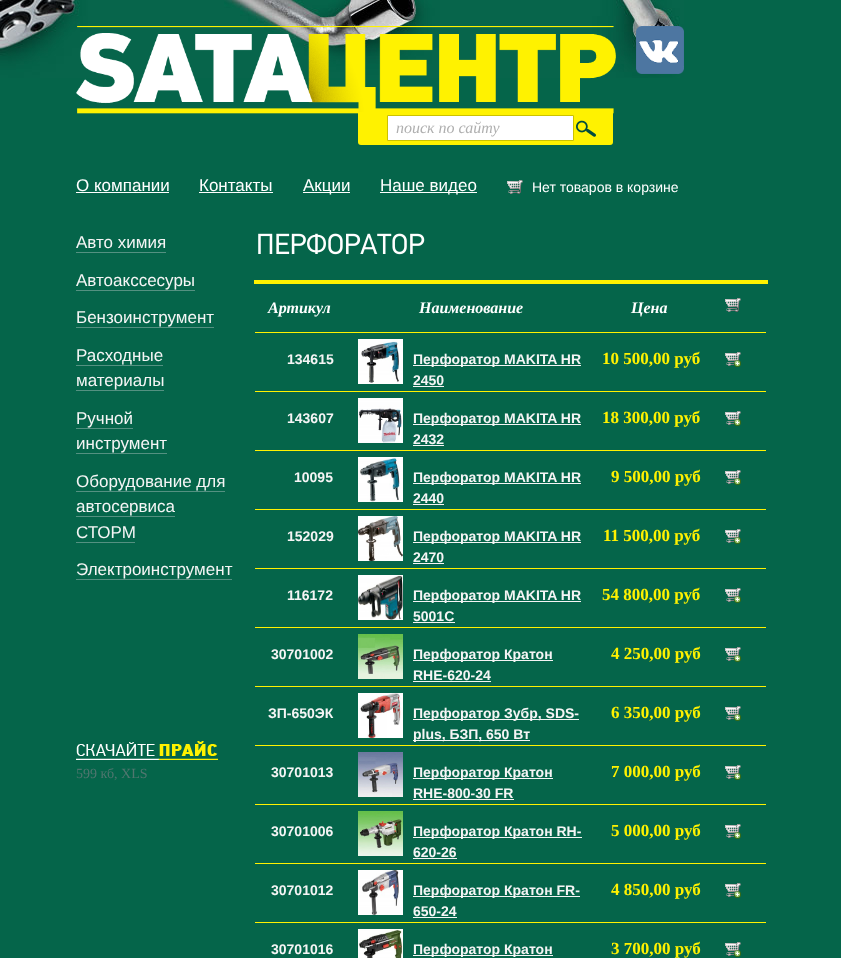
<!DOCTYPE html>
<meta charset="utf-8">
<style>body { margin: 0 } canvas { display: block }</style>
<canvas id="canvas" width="841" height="958"></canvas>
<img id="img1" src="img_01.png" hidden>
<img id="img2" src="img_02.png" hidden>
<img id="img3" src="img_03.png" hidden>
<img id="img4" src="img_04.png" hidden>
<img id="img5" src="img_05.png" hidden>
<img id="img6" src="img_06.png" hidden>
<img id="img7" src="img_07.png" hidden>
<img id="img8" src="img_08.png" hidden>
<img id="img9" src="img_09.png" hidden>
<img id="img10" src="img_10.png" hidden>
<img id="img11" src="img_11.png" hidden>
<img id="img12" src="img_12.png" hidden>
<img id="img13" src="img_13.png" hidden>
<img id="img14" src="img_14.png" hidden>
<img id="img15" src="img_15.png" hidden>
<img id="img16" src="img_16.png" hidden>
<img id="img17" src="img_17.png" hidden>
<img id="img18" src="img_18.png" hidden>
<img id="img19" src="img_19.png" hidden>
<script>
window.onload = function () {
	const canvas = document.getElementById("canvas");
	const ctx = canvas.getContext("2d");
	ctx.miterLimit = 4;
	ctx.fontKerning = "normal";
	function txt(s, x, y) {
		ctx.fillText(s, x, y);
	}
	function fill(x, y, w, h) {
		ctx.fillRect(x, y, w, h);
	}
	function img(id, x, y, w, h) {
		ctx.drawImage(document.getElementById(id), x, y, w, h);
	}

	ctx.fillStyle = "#05654A";
	fill(0, 0, 841, 958);
	img("img1", 0, 0, 684, 78);
	img("img2", 76, 26, 540, 88);
	img("img3", 636, 26, 48, 48);
	ctx.fillStyle = "#FFF200";
	ctx.beginPath();
	ctx.roundRect(358, 112, 255, 33, [0, 0, 3, 3]);
	ctx.fill();
	ctx.fillStyle = "#FFFFFF";
	ctx.beginPath();
	ctx.rect(387.5, 115.5, 186, 25);
	ctx.fill();
	ctx.strokeStyle = "#CCC200";
	ctx.stroke();
	img("img4", 576, 120, 20, 17);
	fill(76, 192, 93, 1);
	fill(199, 192, 74, 1);
	fill(303, 192, 47, 1);
	fill(380, 192, 97, 1);
	img("img5", 507, 180, 16, 14);
	ctx.fillStyle = "#549181";
	fill(76, 252, 90, 1);
	fill(76, 290, 119, 1);
	fill(76, 327, 138, 1);
	fill(76, 365, 87, 1);
	fill(76, 390, 88, 1);
	fill(76, 428, 57, 1);
	fill(76, 453, 91, 1);
	fill(76, 491, 149, 1);
	fill(76, 516, 99, 1);
	fill(76, 542, 59, 1);
	fill(76, 579, 156, 1);
	img("img6", 76, 741, 142, 19);
	img("img7", 258, 233, 167, 22);
	ctx.fillStyle = "#FFF200";
	fill(255, 332, 511, 1);
	fill(254, 280, 514, 4);
	img("img5", 725, 298, 16, 14);
	fill(255, 391, 511, 1);
	img("img8", 725, 352, 16, 15);
	img("img9", 358, 339, 45, 45);
	ctx.fillStyle = "#F5F5F5";
	fill(413, 365, 168, 1);
	fill(413, 386, 31, 1);
	ctx.fillStyle = "#FFF200";
	fill(255, 450, 511, 1);
	img("img8", 725, 411, 16, 15);
	img("img10", 358, 398, 45, 45);
	ctx.fillStyle = "#F5F5F5";
	fill(413, 424, 168, 1);
	fill(413, 445, 31, 1);
	ctx.fillStyle = "#FFF200";
	fill(255, 509, 511, 1);
	img("img8", 725, 470, 16, 15);
	img("img11", 358, 457, 45, 45);
	ctx.fillStyle = "#F5F5F5";
	fill(413, 483, 168, 1);
	fill(413, 504, 31, 1);
	ctx.fillStyle = "#FFF200";
	fill(255, 568, 511, 1);
	img("img8", 725, 529, 16, 15);
	img("img12", 358, 516, 45, 45);
	ctx.fillStyle = "#F5F5F5";
	fill(413, 542, 168, 1);
	fill(413, 563, 31, 1);
	ctx.fillStyle = "#FFF200";
	fill(255, 627, 511, 1);
	img("img8", 725, 588, 16, 15);
	img("img13", 358, 575, 45, 45);
	ctx.fillStyle = "#F5F5F5";
	fill(413, 601, 168, 1);
	fill(413, 622, 42, 1);
	ctx.fillStyle = "#FFF200";
	fill(255, 686, 511, 1);
	img("img8", 725, 647, 16, 15);
	img("img14", 358, 634, 45, 45);
	ctx.fillStyle = "#F5F5F5";
	fill(413, 660, 140, 1);
	fill(413, 681, 78, 1);
	ctx.fillStyle = "#FFF200";
	fill(255, 745, 511, 1);
	img("img8", 725, 706, 16, 15);
	img("img15", 358, 693, 45, 45);
	ctx.fillStyle = "#F5F5F5";
	fill(413, 719, 166, 1);
	fill(413, 740, 117, 1);
	ctx.fillStyle = "#FFF200";
	fill(255, 804, 511, 1);
	img("img8", 725, 765, 16, 15);
	img("img16", 358, 752, 45, 45);
	ctx.fillStyle = "#F5F5F5";
	fill(413, 778, 140, 1);
	fill(413, 799, 101, 1);
	ctx.fillStyle = "#FFF200";
	fill(255, 863, 511, 1);
	img("img8", 725, 824, 16, 15);
	img("img17", 358, 811, 45, 45);
	ctx.fillStyle = "#F5F5F5";
	fill(413, 837, 169, 1);
	fill(413, 858, 44, 1);
	ctx.fillStyle = "#FFF200";
	fill(255, 922, 511, 1);
	img("img8", 725, 883, 16, 15);
	img("img18", 358, 870, 45, 45);
	ctx.fillStyle = "#F5F5F5";
	fill(413, 896, 167, 1);
	fill(413, 917, 44, 1);
	img("img19", 358, 929, 45, 29);
	fill(413, 955, 140, 1);
	img("img8", 725, 942, 16, 15);
	ctx.font = "italic 16px Liberation Serif";
	ctx.fillStyle = "#AFAFAF";
	txt("поиск по сайту", 396, 133);
	ctx.font = "17px Liberation Sans";
	ctx.fillStyle = "#FFFFFF";
	txt("О компании", 76, 191);
	txt("Контакты", 199, 191);
	txt("Акции", 303, 191);
	txt("Наше видео", 380, 191);
	ctx.font = "14px Liberation Sans";
	txt("Нет товаров в корзине", 532, 192);
	ctx.font = "17px Liberation Sans";
	ctx.fillStyle = "#F5F5F5";
	txt("Авто химия", 76, 248);
	txt("Автоакссесуры", 76, 286);
	txt("Бензоинструмент", 76, 323);
	txt("Расходные", 76, 361);
	txt("материалы", 76, 386);
	txt("Ручной", 76, 424);
	txt("инструмент", 76, 449);
	txt("Оборудование для", 76, 487);
	txt("автосервиса", 76, 512);
	txt("СТОРМ", 76, 538);
	txt("Электроинструмент", 76, 575);
	ctx.font = "14px Liberation Serif";
	ctx.fillStyle = "#50766F";
	txt("599 кб, XLS", 76, 778);
	ctx.font = "italic bold 16px Liberation Serif";
	ctx.fillStyle = "#FFFFFF";
	txt("Артикул", 268, 313);
	txt("Наименование", 419, 313);
	txt("Цена", 631, 313);
	ctx.font = "bold 17px Liberation Serif";
	ctx.fillStyle = "#FFF200";
	txt("10 500,00 руб", 602, 364);
	ctx.font = "bold 14px Liberation Sans";
	ctx.fillStyle = "#F5F5F5";
	txt("134615", 287, 364);
	txt("Перфоратор MAKITA HR", 413, 364);
	txt("2450", 413, 385);
	ctx.font = "bold 17px Liberation Serif";
	ctx.fillStyle = "#FFF200";
	txt("18 300,00 руб", 602, 423);
	ctx.font = "bold 14px Liberation Sans";
	ctx.fillStyle = "#F5F5F5";
	txt("143607", 287, 423);
	txt("Перфоратор MAKITA HR", 413, 423);
	txt("2432", 413, 444);
	ctx.font = "bold 17px Liberation Serif";
	ctx.fillStyle = "#FFF200";
	txt("9 500,00 руб", 611, 482);
	ctx.font = "bold 14px Liberation Sans";
	ctx.fillStyle = "#F5F5F5";
	txt("10095", 294, 482);
	txt("Перфоратор MAKITA HR", 413, 482);
	txt("2440", 413, 503);
	ctx.font = "bold 17px Liberation Serif";
	ctx.fillStyle = "#FFF200";
	txt("11 500,00 руб", 603, 541);
	ctx.font = "bold 14px Liberation Sans";
	ctx.fillStyle = "#F5F5F5";
	txt("152029", 287, 541);
	txt("Перфоратор MAKITA HR", 413, 541);
	txt("2470", 413, 562);
	ctx.font = "bold 17px Liberation Serif";
	ctx.fillStyle = "#FFF200";
	txt("54 800,00 руб", 602, 600);
	ctx.font = "bold 14px Liberation Sans";
	ctx.fillStyle = "#F5F5F5";
	txt("116172", 287, 600);
	txt("Перфоратор MAKITA HR", 413, 600);
	txt("5001C", 413, 621);
	ctx.font = "bold 17px Liberation Serif";
	ctx.fillStyle = "#FFF200";
	txt("4 250,00 руб", 611, 659);
	ctx.font = "bold 14px Liberation Sans";
	ctx.fillStyle = "#F5F5F5";
	txt("30701002", 271, 659);
	txt("Перфоратор Кратон", 413, 659);
	txt("RHE-620-24", 413, 680);
	ctx.font = "bold 17px Liberation Serif";
	ctx.fillStyle = "#FFF200";
	txt("6 350,00 руб", 611, 718);
	ctx.font = "bold 14px Liberation Sans";
	ctx.fillStyle = "#F5F5F5";
	txt("ЗП-650ЭК", 268, 718);
	txt("Перфоратор Зубр, SDS-", 413, 718);
	txt("plus, БЗП, 650 Вт", 413, 739);
	ctx.font = "bold 17px Liberation Serif";
	ctx.fillStyle = "#FFF200";
	txt("7 000,00 руб", 611, 777);
	ctx.font = "bold 14px Liberation Sans";
	ctx.fillStyle = "#F5F5F5";
	txt("30701013", 271, 777);
	txt("Перфоратор Кратон", 413, 777);
	txt("RHЕ-800-30 FR", 413, 798);
	ctx.font = "bold 17px Liberation Serif";
	ctx.fillStyle = "#FFF200";
	txt("5 000,00 руб", 611, 836);
	ctx.font = "bold 14px Liberation Sans";
	ctx.fillStyle = "#F5F5F5";
	txt("30701006", 271, 836);
	txt("Перфоратор Кратон RH-", 413, 836);
	txt("620-26", 413, 857);
	ctx.font = "bold 17px Liberation Serif";
	ctx.fillStyle = "#FFF200";
	txt("4 850,00 руб", 611, 895);
	ctx.font = "bold 14px Liberation Sans";
	ctx.fillStyle = "#F5F5F5";
	txt("30701012", 271, 895);
	txt("Перфоратор Кратон FR-", 413, 895);
	txt("650-24", 413, 916);
	txt("30701016", 271, 954);
	txt("Перфоратор Кратон", 413, 954);
	ctx.font = "bold 17px Liberation Serif";
	ctx.fillStyle = "#FFF200";
	txt("3 700,00 руб", 611, 954);
};
</script>
